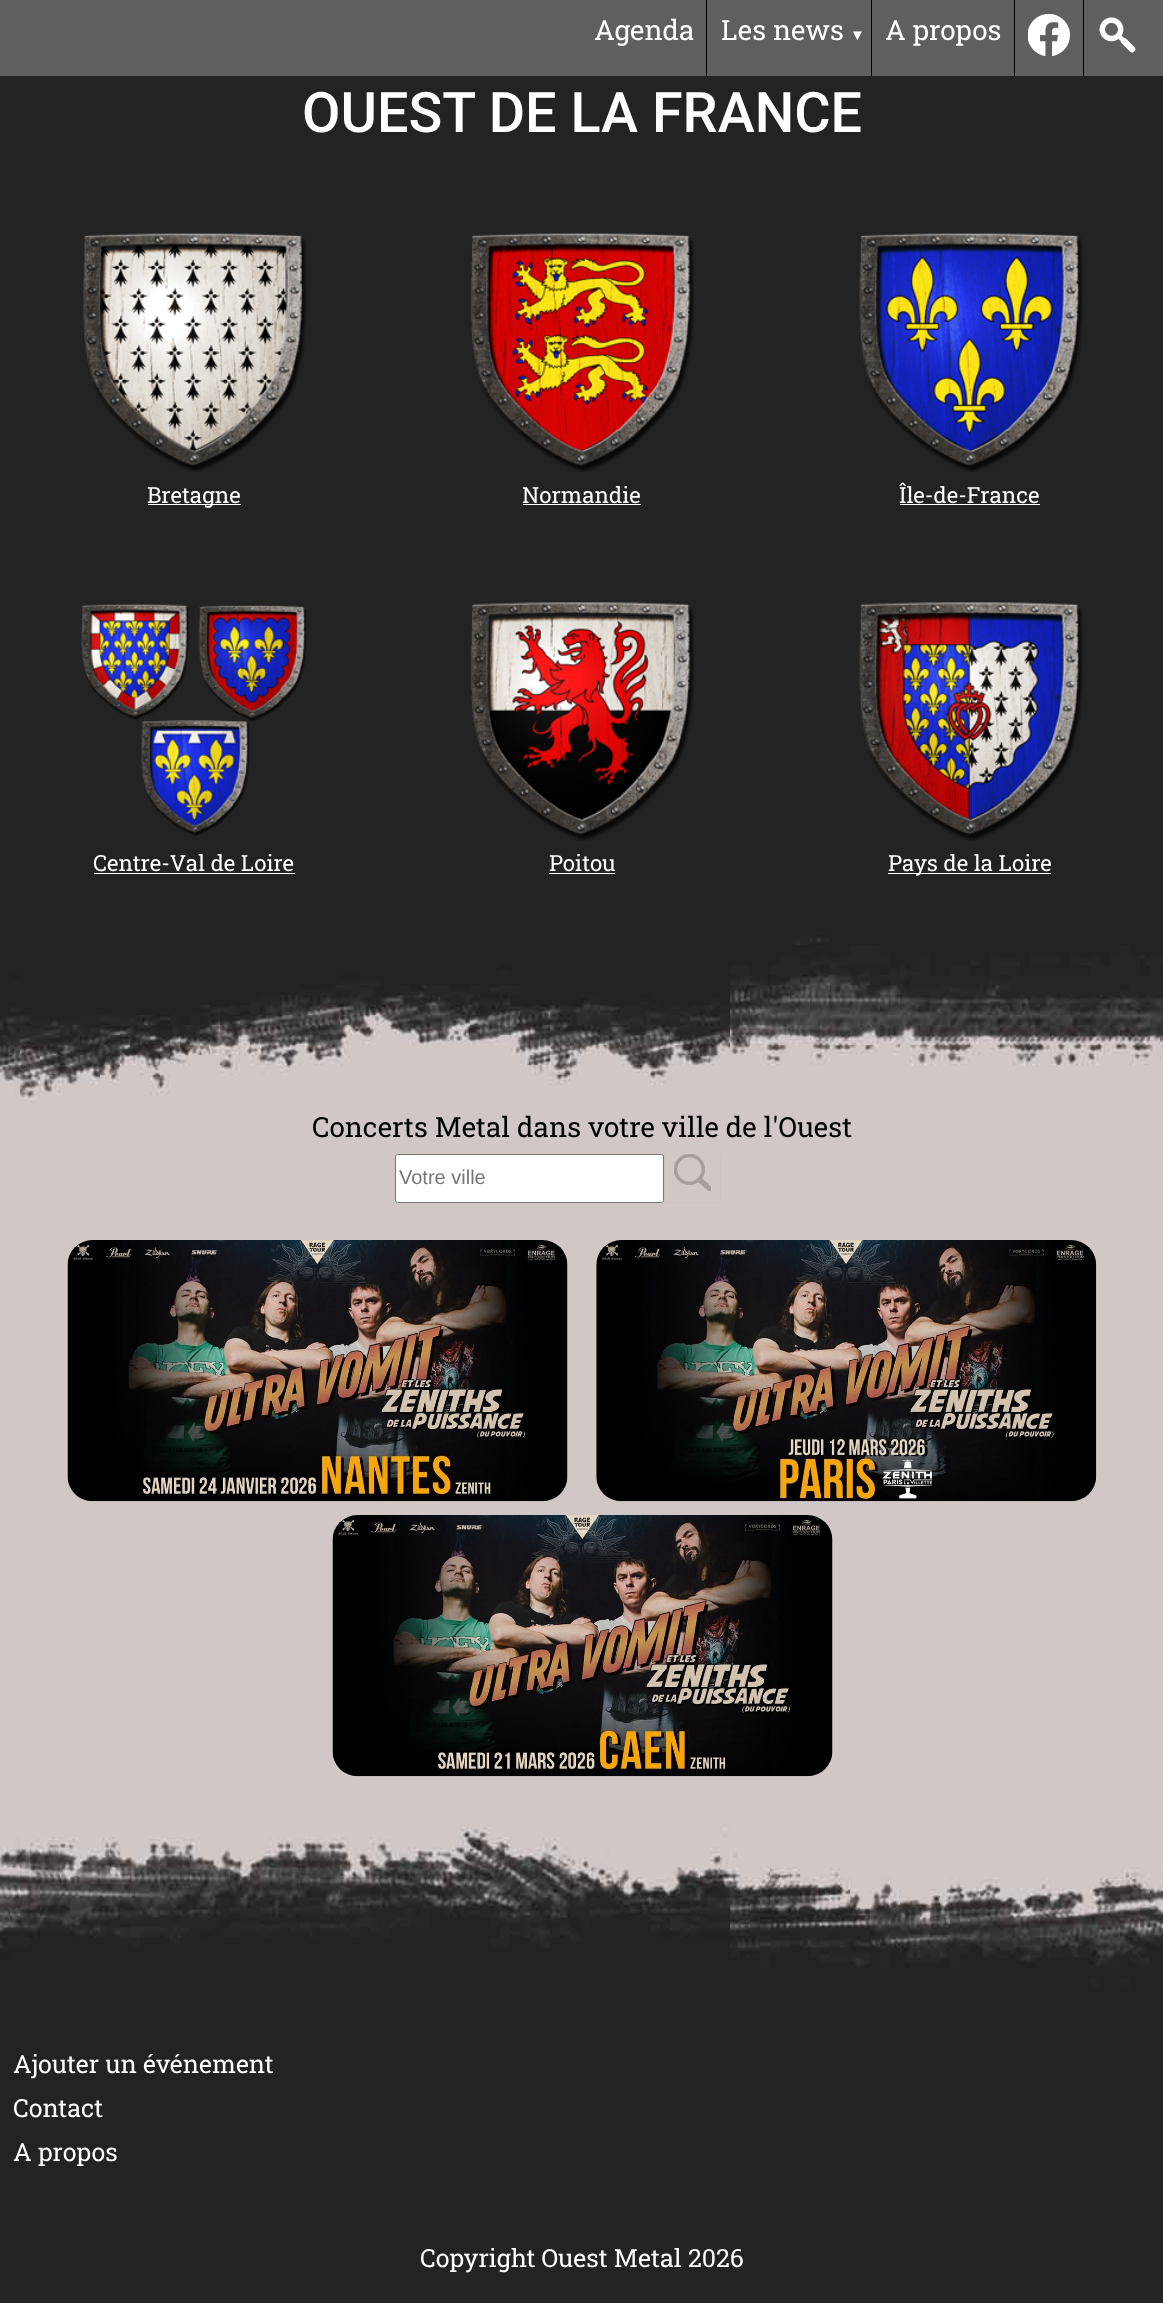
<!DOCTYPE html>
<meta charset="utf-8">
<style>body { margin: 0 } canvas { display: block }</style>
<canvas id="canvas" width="1163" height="2303"></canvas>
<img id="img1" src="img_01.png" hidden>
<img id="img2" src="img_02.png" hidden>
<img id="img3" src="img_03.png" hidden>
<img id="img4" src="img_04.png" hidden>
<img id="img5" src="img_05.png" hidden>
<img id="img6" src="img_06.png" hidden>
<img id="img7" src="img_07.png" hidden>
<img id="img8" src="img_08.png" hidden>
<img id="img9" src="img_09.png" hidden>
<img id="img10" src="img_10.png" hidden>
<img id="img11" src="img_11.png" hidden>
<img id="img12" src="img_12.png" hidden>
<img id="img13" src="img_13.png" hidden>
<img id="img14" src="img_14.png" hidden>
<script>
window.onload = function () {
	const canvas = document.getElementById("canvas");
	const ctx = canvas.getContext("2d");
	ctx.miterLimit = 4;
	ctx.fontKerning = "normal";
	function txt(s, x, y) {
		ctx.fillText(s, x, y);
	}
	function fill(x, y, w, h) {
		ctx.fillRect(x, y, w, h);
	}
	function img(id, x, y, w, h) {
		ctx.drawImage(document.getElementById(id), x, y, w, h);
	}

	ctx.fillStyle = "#232323";
	fill(0, 0, 1163, 2303);
	ctx.fillStyle = "#5F5F5F";
	fill(0, 0, 1163, 76);
	ctx.fillStyle = "#000000";
	fill(706, 0, 1, 76);
	fill(871, 0, 1, 76);
	fill(1014, 0, 1, 76);
	fill(1083, 0, 1, 76);
	img("img1", 1028, 14, 42, 42);
	img("img2", 1099, 17, 37, 36);
	img("img3", 83, 233, 224, 239);
	ctx.fillStyle = "#FFFFFF";
	fill(148, 504, 93, 1);
	img("img4", 470, 233, 224, 239);
	fill(523, 504, 118, 1);
	img("img5", 859, 233, 224, 239);
	fill(900, 504, 140, 1);
	img("img6", 81, 604, 226, 232);
	fill(94, 873, 201, 1);
	img("img7", 470, 602, 224, 239);
	fill(549, 873, 66, 1);
	img("img8", 859, 602, 224, 239);
	fill(888, 873, 163, 1);
	ctx.fillStyle = "#D1C7C7";
	fill(0, 1102, 1163, 726);
	img("img9", 0, 925, 1163, 178);
	ctx.fillStyle = "#FFFFFF";
	ctx.beginPath();
	ctx.roundRect(395.5, 1154.5, 268, 48, 2);
	ctx.fill();
	ctx.strokeStyle = "#767676";
	ctx.stroke();
	ctx.beginPath();
	ctx.roundRect(664.5, 1150.5, 56, 52, 2);
	ctx.strokeStyle = "#CDC4C4";
	ctx.stroke();
	img("img10", 674, 1154, 37, 37);
	img("img11", 67, 1240, 501, 262);
	img("img12", 596, 1240, 501, 262);
	img("img13", 332, 1515, 501, 262);
	img("img14", 0, 1827, 1163, 178);
	ctx.font = "27.8px Roboto Slab";
	txt("Agenda", 594, 40);
	txt("Les news", 721, 40);
	ctx.font = "15px Liberation Serif";
	txt("▼", 850, 40);
	ctx.font = "27.8px Roboto Slab";
	txt("A propos", 885, 40);
	ctx.font = "500 55.75px Roboto";
	txt("OUEST DE LA FRANCE", 302, 132);
	ctx.font = "22.25px Roboto Slab";
	txt("Bretagne", 147, 503);
	txt("Normandie", 522, 503);
	txt("Île-de-France", 899, 503);
	txt("Centre-Val de Loire", 93, 871);
	txt("Poitou", 549, 871);
	txt("Pays de la Loire", 888, 871);
	ctx.font = "27.8px Roboto Slab";
	ctx.fillStyle = "#000000";
	txt("Concerts Metal dans votre ville de l'Ouest", 312, 1137);
	ctx.font = "20px Liberation Sans";
	ctx.fillStyle = "#757575";
	txt("Votre ville", 399, 1184);
	ctx.font = "25px Roboto Slab";
	ctx.fillStyle = "#FFFFFF";
	txt("Ajouter un événement", 13, 2073);
	txt("Contact", 13, 2117);
	txt("A propos", 13, 2161);
	txt("Copyright Ouest Metal 2026", 420, 2267);
};
</script>
